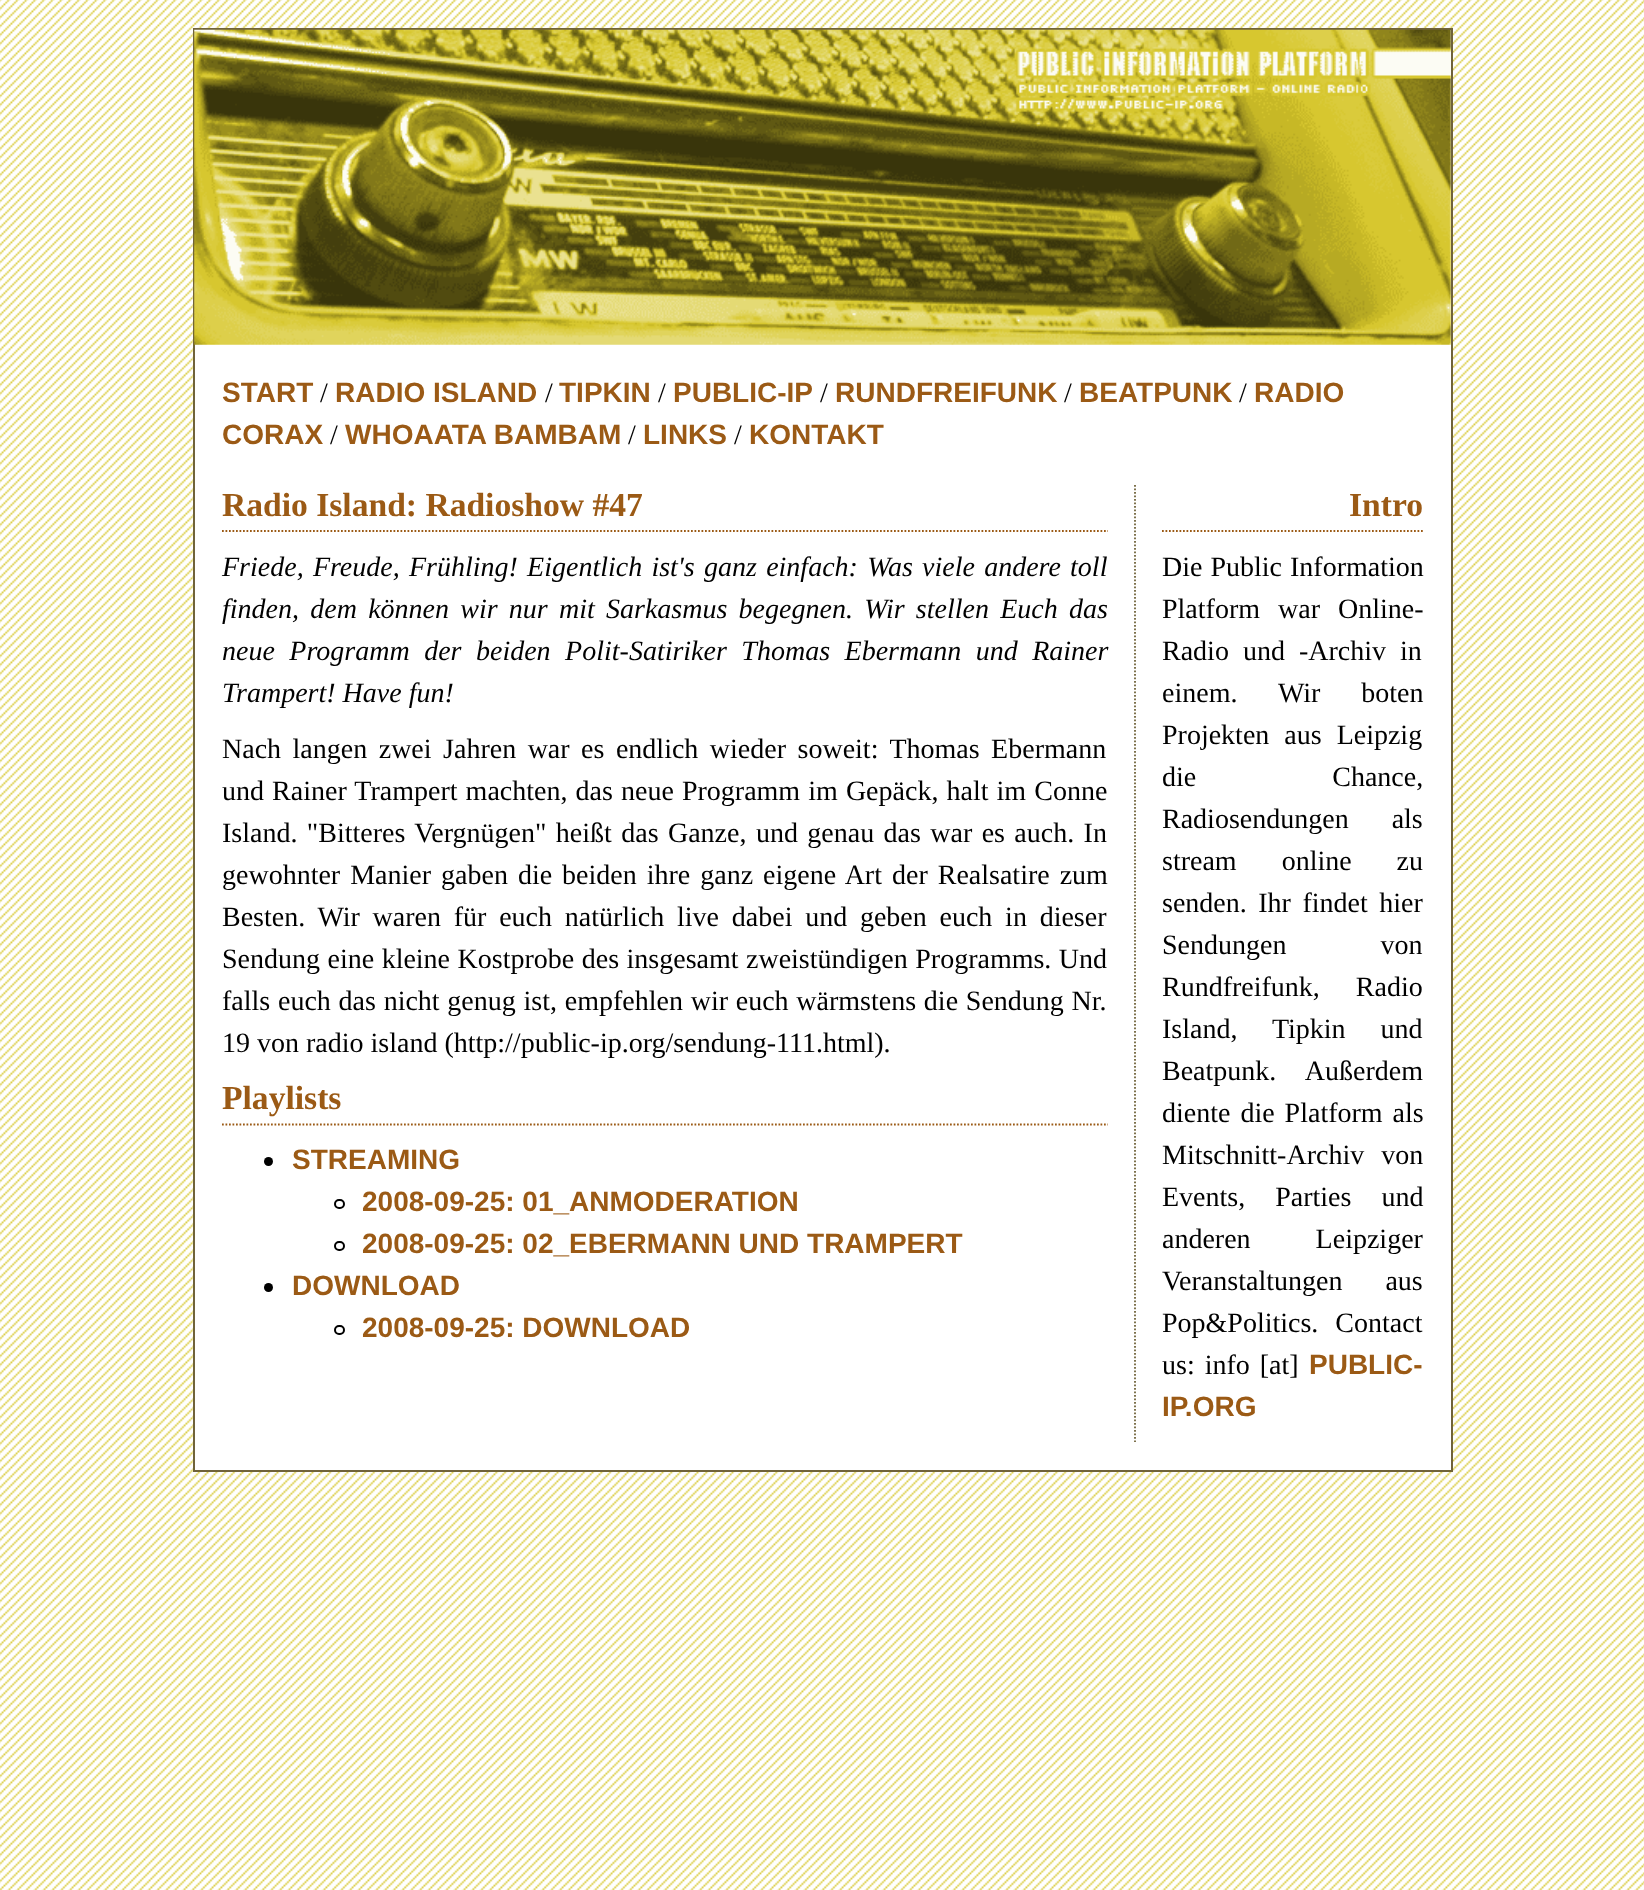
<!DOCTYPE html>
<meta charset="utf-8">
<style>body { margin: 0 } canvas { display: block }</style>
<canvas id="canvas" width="1644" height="1890"></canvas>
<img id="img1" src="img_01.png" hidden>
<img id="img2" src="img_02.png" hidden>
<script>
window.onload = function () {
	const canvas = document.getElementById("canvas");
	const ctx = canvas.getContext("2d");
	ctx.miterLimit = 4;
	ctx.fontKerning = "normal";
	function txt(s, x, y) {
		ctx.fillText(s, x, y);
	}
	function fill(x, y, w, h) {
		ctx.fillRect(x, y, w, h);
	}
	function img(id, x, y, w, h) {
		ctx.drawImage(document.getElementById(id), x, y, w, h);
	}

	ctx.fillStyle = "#FFFFFF";
	fill(0, 0, 1644, 1890);
	img("img1", 0, 0, 1644, 1890);
	ctx.beginPath();
	ctx.rect(194, 29, 1258, 1442);
	ctx.fill();
	ctx.strokeStyle = "#70633A";
	ctx.lineWidth = 2;
	ctx.stroke();
	img("img2", 194, 29, 1257, 316);
	ctx.beginPath();
	ctx.moveTo(1135, 485);
	ctx.lineTo(1135, 1442);
	ctx.lineWidth = 1.8;
	ctx.setLineDash([1.75, 1.75]);
	ctx.stroke();
	ctx.beginPath();
	ctx.moveTo(222, 531);
	ctx.lineTo(1108, 531);
	ctx.strokeStyle = "#9B5A15";
	ctx.stroke();
	ctx.beginPath();
	ctx.moveTo(222, 1124.5);
	ctx.lineTo(1108, 1124.5);
	ctx.stroke();
	ctx.fillStyle = "#000000";
	ctx.beginPath();
	ctx.arc(268.5, 1161.5, 4.5, 0, Math.PI * 2);
	ctx.fill();
	ctx.beginPath();
	ctx.roundRect(335, 1200, 9, 8, 4);
	ctx.strokeStyle = "#000000";
	ctx.lineWidth = 2;
	ctx.setLineDash([]);
	ctx.stroke();
	ctx.beginPath();
	ctx.roundRect(335, 1242, 9, 8, 4);
	ctx.stroke();
	ctx.beginPath();
	ctx.arc(268.5, 1287.5, 4.5, 0, Math.PI * 2);
	ctx.fill();
	ctx.beginPath();
	ctx.roundRect(335, 1326, 9, 8, 4);
	ctx.stroke();
	ctx.beginPath();
	ctx.moveTo(1162, 531);
	ctx.lineTo(1423, 531);
	ctx.strokeStyle = "#9B5A15";
	ctx.lineWidth = 1.8;
	ctx.setLineDash([1.75, 1.75]);
	ctx.stroke();
	ctx.font = "bold 28px Liberation Sans";
	ctx.fillStyle = "#9B5A15";
	txt("START", 222, 402);
	ctx.font = "28px Liberation Serif";
	ctx.fillStyle = "#000000";
	txt("/", 320, 402);
	ctx.font = "bold 28px Liberation Sans";
	ctx.fillStyle = "#9B5A15";
	txt("RADIO ISLAND", 335, 402);
	ctx.font = "28px Liberation Serif";
	ctx.fillStyle = "#000000";
	txt("/", 545, 402);
	ctx.font = "bold 28px Liberation Sans";
	ctx.fillStyle = "#9B5A15";
	txt("TIPKIN", 559, 402);
	ctx.font = "28px Liberation Serif";
	ctx.fillStyle = "#000000";
	txt("/", 658, 402);
	ctx.font = "bold 28px Liberation Sans";
	ctx.fillStyle = "#9B5A15";
	txt("PUBLIC-IP", 673, 402);
	ctx.font = "28px Liberation Serif";
	ctx.fillStyle = "#000000";
	txt("/", 820, 402);
	ctx.font = "bold 28px Liberation Sans";
	ctx.fillStyle = "#9B5A15";
	txt("RUNDFREIFUNK", 835, 402);
	ctx.font = "28px Liberation Serif";
	ctx.fillStyle = "#000000";
	txt("/", 1064, 402);
	ctx.font = "bold 28px Liberation Sans";
	ctx.fillStyle = "#9B5A15";
	txt("BEATPUNK", 1079, 402);
	ctx.font = "28px Liberation Serif";
	ctx.fillStyle = "#000000";
	txt("/", 1239, 402);
	ctx.font = "bold 28px Liberation Sans";
	ctx.fillStyle = "#9B5A15";
	txt("RADIO", 1254, 402);
	txt("CORAX", 222, 444);
	ctx.font = "28px Liberation Serif";
	ctx.fillStyle = "#000000";
	txt("/", 330, 444);
	ctx.font = "bold 28px Liberation Sans";
	ctx.fillStyle = "#9B5A15";
	txt("WHOAATA BAMBAM", 345, 444);
	ctx.font = "28px Liberation Serif";
	ctx.fillStyle = "#000000";
	txt("/", 628, 444);
	ctx.font = "bold 28px Liberation Sans";
	ctx.fillStyle = "#9B5A15";
	txt("LINKS", 643, 444);
	ctx.font = "28px Liberation Serif";
	ctx.fillStyle = "#000000";
	txt("/", 734, 444);
	ctx.font = "bold 28px Liberation Sans";
	ctx.fillStyle = "#9B5A15";
	txt("KONTAKT", 749, 444);
	ctx.font = "bold 33.6px Liberation Serif";
	txt("Radio Island: Radioshow #47", 222, 516);
	ctx.wordSpacing = "2.25px";
	ctx.font = "italic 28px Liberation Serif";
	ctx.fillStyle = "#000000";
	txt("Friede, Freude, Frühling! Eigentlich ist's ganz einfach: Was viele andere toll", 222, 576);
	ctx.wordSpacing = "4.25px";
	txt("finden, dem können wir nur mit Sarkasmus begegnen. Wir stellen Euch das", 222, 618);
	ctx.wordSpacing = "7.5px";
	txt("neue Programm der beiden Polit-Satiriker Thomas Ebermann und Rainer", 222, 660);
	ctx.wordSpacing = "0px";
	txt("Trampert! Have fun!", 222, 702);
	ctx.wordSpacing = "4.5px";
	ctx.font = "28px Liberation Serif";
	txt("Nach langen zwei Jahren war es endlich wieder soweit: Thomas Ebermann", 222, 758);
	ctx.wordSpacing = "1.1px";
	txt("und Rainer Trampert machten, das neue Programm im Gepäck, halt im Conne", 222, 800);
	ctx.wordSpacing = "2.4px";
	txt("Island. \"Bitteres Vergnügen\" heißt das Ganze, und genau das war es auch. In", 222, 842);
	ctx.wordSpacing = "3px";
	txt("gewohnter Manier gaben die beiden ihre ganz eigene Art der Realsatire zum", 222, 884);
	ctx.wordSpacing = "5.75px";
	txt("Besten. Wir waren für euch natürlich live dabei und geben euch in dieser", 222, 926);
	ctx.wordSpacing = "0.5px";
	txt("Sendung eine kleine Kostprobe des insgesamt zweistündigen Programms. Und", 222, 968);
	ctx.wordSpacing = "0.75px";
	txt("falls euch das nicht genug ist, empfehlen wir euch wärmstens die Sendung Nr.", 222, 1010);
	ctx.wordSpacing = "0px";
	txt("19 von radio island (http://public-ip.org/sendung-111.html).", 222, 1052);
	ctx.font = "bold 33.6px Liberation Serif";
	ctx.fillStyle = "#9B5A15";
	txt("Playlists", 222, 1109);
	ctx.font = "bold 28px Liberation Sans";
	txt("STREAMING", 292, 1169);
	txt("2008-09-25: 01_ANMODERATION", 362, 1211);
	txt("2008-09-25: 02_EBERMANN UND TRAMPERT", 362, 1253);
	txt("DOWNLOAD", 292, 1295);
	txt("2008-09-25: DOWNLOAD", 362, 1337);
	ctx.font = "bold 33.6px Liberation Serif";
	txt("Intro", 1349, 516);
	ctx.wordSpacing = "1px";
	ctx.font = "28px Liberation Serif";
	ctx.fillStyle = "#000000";
	txt("Die Public Information", 1162, 576);
	ctx.wordSpacing = "11px";
	txt("Platform war Online-", 1162, 618);
	ctx.wordSpacing = "7px";
	txt("Radio und -Archiv in", 1162, 660);
	ctx.wordSpacing = "34px";
	txt("einem. Wir boten", 1162, 702);
	ctx.wordSpacing = "8px";
	txt("Projekten aus Leipzig", 1162, 744);
	ctx.wordSpacing = "129px";
	txt("die Chance,", 1162, 786);
	ctx.wordSpacing = "36px";
	txt("Radiosendungen als", 1162, 828);
	ctx.wordSpacing = "38px";
	txt("stream online zu", 1162, 870);
	ctx.wordSpacing = "4.5px";
	txt("senden. Ihr findet hier", 1162, 912);
	ctx.wordSpacing = "87px";
	txt("Sendungen von", 1162, 954);
	ctx.wordSpacing = "29px";
	txt("Rundfreifunk, Radio", 1162, 996);
	ctx.wordSpacing = "28px";
	txt("Island, Tipkin und", 1162, 1038);
	ctx.wordSpacing = "23px";
	txt("Beatpunk. Außerdem", 1162, 1080);
	ctx.wordSpacing = "3px";
	txt("diente die Platform als", 1162, 1122);
	ctx.wordSpacing = "10px";
	txt("Mitschnitt-Archiv von", 1162, 1164);
	ctx.wordSpacing = "23px";
	txt("Events, Parties und", 1162, 1206);
	ctx.wordSpacing = "58px";
	txt("anderen Leipziger", 1162, 1248);
	ctx.wordSpacing = "36px";
	txt("Veranstaltungen aus", 1162, 1290);
	ctx.wordSpacing = "10px";
	txt("Pop&Politics. Contact", 1162, 1332);
	ctx.wordSpacing = "3px";
	txt("us: info [at]", 1162, 1374);
	ctx.wordSpacing = "0px";
	ctx.font = "bold 28px Liberation Sans";
	ctx.fillStyle = "#9B5A15";
	txt("PUBLIC-", 1309, 1374);
	txt("IP.ORG", 1162, 1416);
};
</script>
